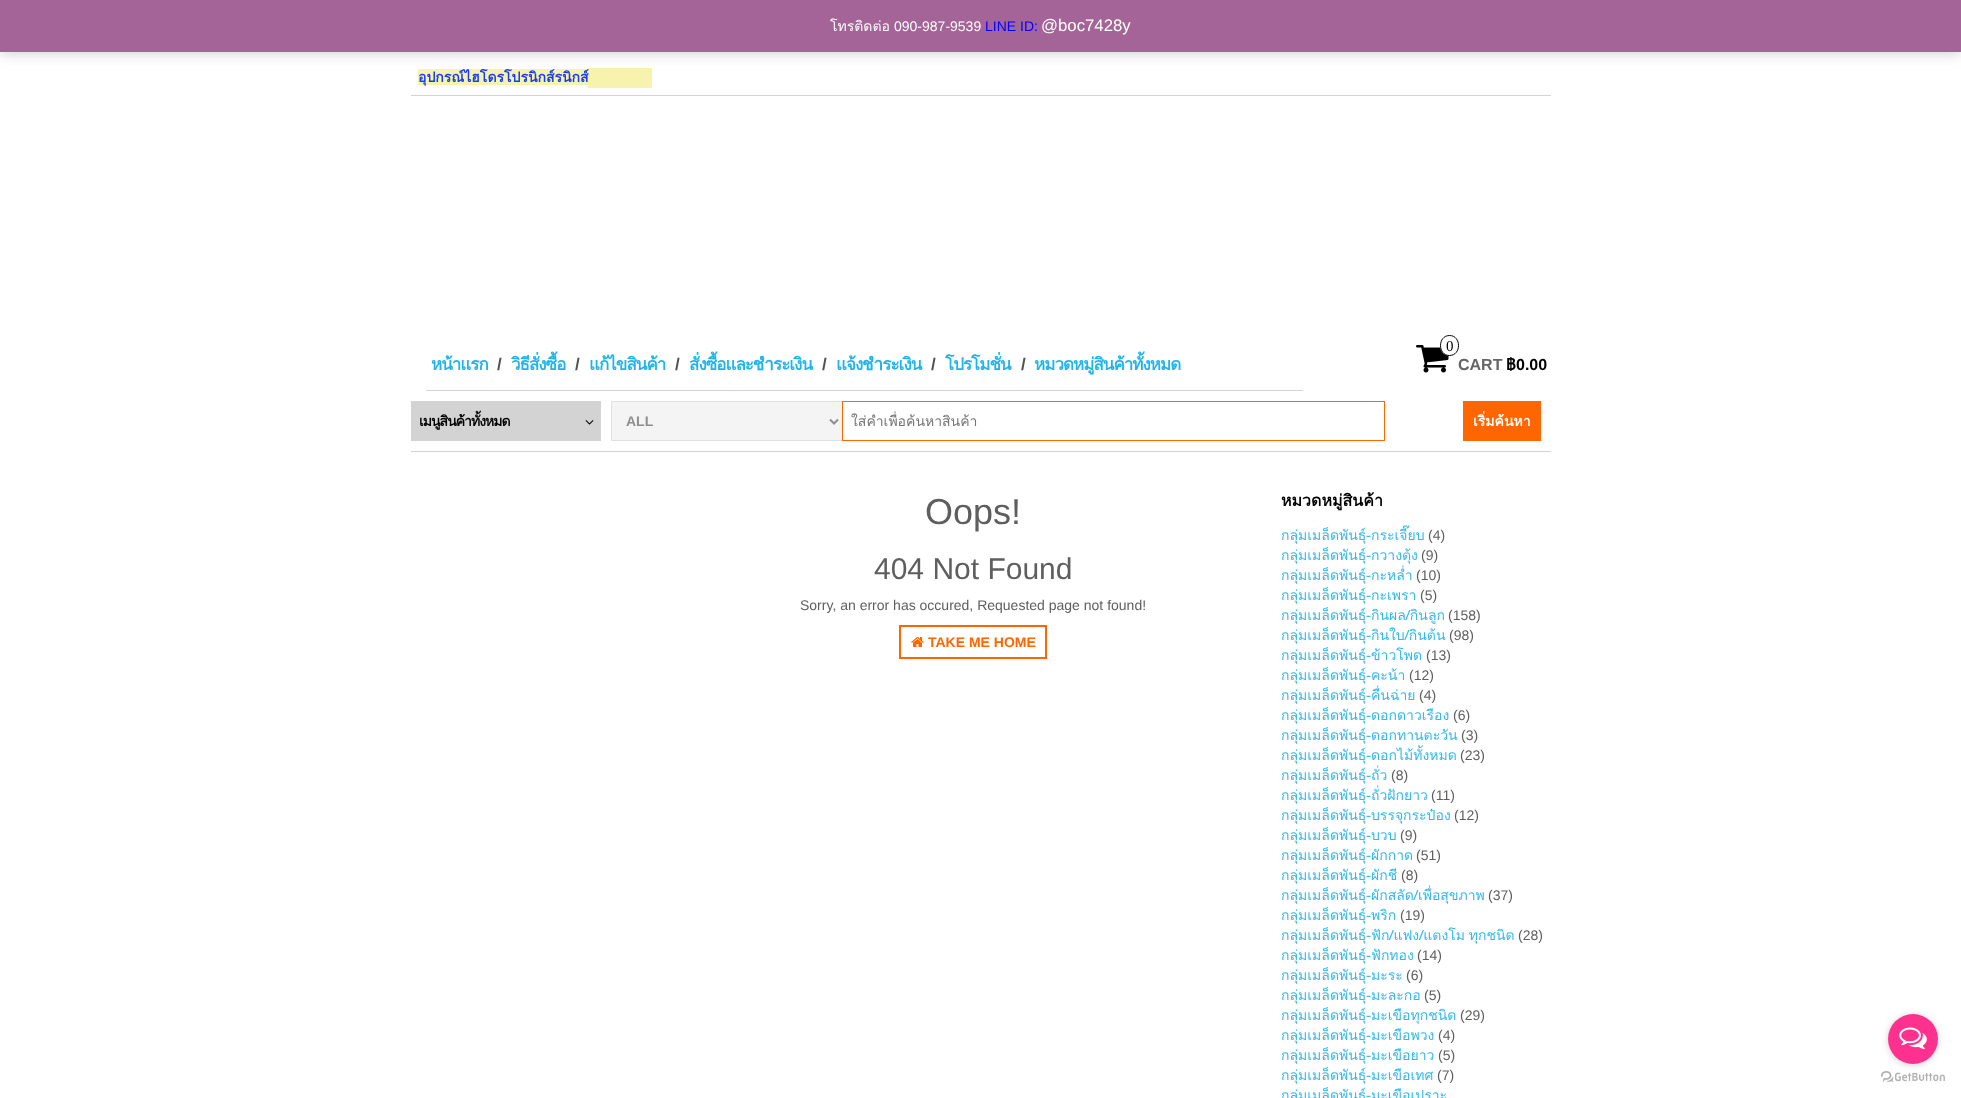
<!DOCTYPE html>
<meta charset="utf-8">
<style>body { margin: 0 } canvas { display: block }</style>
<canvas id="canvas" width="1961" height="1098"></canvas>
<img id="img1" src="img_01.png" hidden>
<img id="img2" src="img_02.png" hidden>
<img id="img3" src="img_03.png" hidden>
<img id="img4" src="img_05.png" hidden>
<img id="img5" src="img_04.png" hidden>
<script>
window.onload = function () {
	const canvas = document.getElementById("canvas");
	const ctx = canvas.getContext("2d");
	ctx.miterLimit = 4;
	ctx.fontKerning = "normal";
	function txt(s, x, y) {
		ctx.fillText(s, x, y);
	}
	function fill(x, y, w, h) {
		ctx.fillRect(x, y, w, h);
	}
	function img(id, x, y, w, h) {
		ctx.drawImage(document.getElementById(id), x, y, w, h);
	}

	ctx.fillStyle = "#FFFFFF";
	fill(0, 0, 1961, 1098);
	ctx.fillStyle = "#F7F2AD";
	fill(418, 69, 170, 16);
	fill(588, 68, 64, 20);
	ctx.fillStyle = "rgba(0, 0, 0, 0.2)";
	ctx.filter = "blur(7px)";
	ctx.beginPath();
	ctx.rect(0, 1, 1961, 52);
	ctx.fill();
	ctx.filter = "none";
	ctx.fillStyle = "#A46497";
	fill(0, 0, 1961, 52);
	ctx.fillStyle = "#D3D3D3";
	fill(411, 95, 1140, 1);
	fill(426, 390, 877, 1);
	img("img1", 1416, 345, 33, 28);
	ctx.fillStyle = "#FFFFFF";
	ctx.beginPath();
	ctx.ellipse(1449.5, 345.5, 9.5, 10.5, 0, 0, Math.PI * 2);
	ctx.fill();
	ctx.beginPath();
	ctx.moveTo(1449.5, 335.5);
	ctx.bezierCurveTo(1461.5, 335.5, 1461.5, 355.5, 1449.5, 355.5);
	ctx.bezierCurveTo(1437.5, 355.5, 1437.5, 335.5, 1449.5, 335.5);
	ctx.closePath();
	ctx.strokeStyle = "#000000";
	ctx.stroke();
	ctx.fillStyle = "#D3D3D3";
	fill(411, 451, 1140, 1);
	fill(411, 401, 190, 40);
	img("img2", 585, 420, 9, 5);
	ctx.fillStyle = "#F4F4F4";
	ctx.beginPath();
	ctx.rect(611.5, 401.5, 231, 39);
	ctx.fill();
	ctx.strokeStyle = "#E0E0E0";
	ctx.stroke();
	ctx.beginPath();
	ctx.moveTo(830, 419.5);
	ctx.lineTo(834, 423.5);
	ctx.lineTo(838, 419.5);
	ctx.strokeStyle = "#8E8E8E";
	ctx.lineWidth = 2;
	ctx.stroke();
	ctx.strokeStyle = "#FF6600";
	ctx.lineWidth = 1;
	ctx.strokeRect(842.5, 401.5, 542, 39);
	ctx.fillStyle = "#FF6600";
	fill(1463, 401, 78, 40);
	ctx.lineWidth = 2;
	ctx.strokeRect(900, 626, 146, 32);
	img("img3", 911, 637, 13, 10);
	img("img4", 1881, 1071, 64, 11);
	ctx.fillStyle = "rgba(136, 136, 136, 0.4)";
	ctx.filter = "blur(3.5px)";
	ctx.beginPath();
	ctx.roundRect(1888, 1015, 50, 50, 25);
	ctx.fill();
	ctx.filter = "none";
	ctx.fillStyle = "#FF318E";
	ctx.beginPath();
	ctx.arc(1913, 1039, 25, 0, Math.PI * 2);
	ctx.fill();
	img("img5", 1899, 1027, 28, 23);
	ctx.font = "14px Loma";
	ctx.fillStyle = "#FFFFFF";
	txt("โทรติดต่อ", 830, 31);
	ctx.font = "14px Liberation Sans";
	txt("090-987-9539", 894, 31);
	ctx.fillStyle = "#0000FF";
	txt("LINE ID:", 985, 31);
	ctx.font = "16.75px Liberation Sans";
	ctx.fillStyle = "#FFFFFF";
	txt("@boc7428y", 1041, 31);
	ctx.font = "bold 14px Loma";
	ctx.fillStyle = "#143DF5";
	txt("อุปกรณ์ไฮโดรโปรนิกส์รนิกส์", 418, 82);
	ctx.letterSpacing = "-1px";
	ctx.font = "bold 17px Loma";
	ctx.fillStyle = "#20B4EA";
	txt("หน้าแรก", 431, 370);
	ctx.font = "bold 17px Liberation Sans";
	ctx.fillStyle = "#515151";
	txt("/", 497, 370);
	ctx.font = "bold 17px Loma";
	ctx.fillStyle = "#20B4EA";
	txt("วิธีสั่งซื้อ", 511, 370);
	ctx.font = "bold 17px Liberation Sans";
	ctx.fillStyle = "#515151";
	txt("/", 575, 370);
	ctx.font = "bold 17px Loma";
	ctx.fillStyle = "#20B4EA";
	txt("แก้ไขสินค้า", 589, 370);
	ctx.font = "bold 17px Liberation Sans";
	ctx.fillStyle = "#515151";
	txt("/", 675, 370);
	ctx.font = "bold 17px Loma";
	ctx.fillStyle = "#20B4EA";
	txt("สั่งซื้อและชำระเงิน", 689, 370);
	ctx.font = "bold 17px Liberation Sans";
	ctx.fillStyle = "#515151";
	txt("/", 822, 370);
	ctx.font = "bold 17px Loma";
	ctx.fillStyle = "#20B4EA";
	txt("แจ้งชำระเงิน", 836, 370);
	ctx.font = "bold 17px Liberation Sans";
	ctx.fillStyle = "#515151";
	txt("/", 931, 370);
	ctx.font = "bold 17px Loma";
	ctx.fillStyle = "#20B4EA";
	txt("โปรโมชั่น", 945, 370);
	ctx.font = "bold 17px Liberation Sans";
	ctx.fillStyle = "#515151";
	txt("/", 1021, 370);
	ctx.font = "bold 17px Loma";
	ctx.fillStyle = "#20B4EA";
	txt("หมวดหมู่สินค้าทั้งหมด", 1034, 370);
	ctx.letterSpacing = "0px";
	ctx.font = "15px Liberation Serif";
	ctx.fillStyle = "#000000";
	txt("0", 1446, 351);
	ctx.font = "bold 16px Liberation Sans";
	ctx.fillStyle = "#666666";
	txt("CART", 1458, 370);
	ctx.font = "bold 16px Loma";
	ctx.fillStyle = "#000000";
	txt("฿", 1506, 370);
	ctx.font = "bold 16px Liberation Sans";
	txt("0.00", 1516, 370);
	ctx.letterSpacing = "-1px";
	ctx.font = "bold 14px Loma";
	txt("เมนูสินค้าทั้งหมด", 419, 426);
	ctx.letterSpacing = "0px";
	ctx.font = "bold 14px Liberation Sans";
	ctx.fillStyle = "#8E8E8E";
	txt("ALL", 626, 426);
	ctx.font = "14px Loma";
	ctx.fillStyle = "#757575";
	txt("ใส่คำเพื่อค้นหาสินค้า", 851, 426);
	ctx.font = "bold 14px Loma";
	ctx.fillStyle = "#FFFFFF";
	txt("เริ่มค้นหา", 1473, 426);
	ctx.font = "36px Liberation Sans";
	ctx.fillStyle = "#5E5E5E";
	txt("Oops!", 925, 524);
	ctx.font = "30px Liberation Sans";
	txt("404 Not Found", 874, 579);
	ctx.font = "14px Liberation Sans";
	txt("Sorry, an error has occured, Requested page not found!", 800, 610);
	ctx.font = "bold 14px Liberation Sans";
	ctx.fillStyle = "#FF6600";
	txt("TAKE ME HOME", 928, 647);
	ctx.font = "bold 16px Loma";
	ctx.fillStyle = "#000000";
	txt("หมวดหมู่สินค้า", 1281, 506);
	ctx.font = "14px Loma";
	ctx.fillStyle = "#33B9EA";
	txt("กลุ่มเมล็ดพันธุ์-กระเจี๊ยบ", 1281, 540);
	ctx.font = "14px Liberation Sans";
	ctx.fillStyle = "#5E5E5E";
	txt("(4)", 1428, 540);
	ctx.font = "14px Loma";
	ctx.fillStyle = "#33B9EA";
	txt("กลุ่มเมล็ดพันธุ์-กวางตุ้ง", 1281, 560);
	ctx.font = "14px Liberation Sans";
	ctx.fillStyle = "#5E5E5E";
	txt("(9)", 1421, 560);
	ctx.font = "14px Loma";
	ctx.fillStyle = "#33B9EA";
	txt("กลุ่มเมล็ดพันธุ์-กะหล่ำ", 1281, 580);
	ctx.font = "14px Liberation Sans";
	ctx.fillStyle = "#5E5E5E";
	txt("(10)", 1416, 580);
	ctx.font = "14px Loma";
	ctx.fillStyle = "#33B9EA";
	txt("กลุ่มเมล็ดพันธุ์-กะเพรา", 1281, 600);
	ctx.font = "14px Liberation Sans";
	ctx.fillStyle = "#5E5E5E";
	txt("(5)", 1420, 600);
	ctx.font = "14px Loma";
	ctx.fillStyle = "#33B9EA";
	txt("กลุ่มเมล็ดพันธุ์-กินผล/กินลูก", 1281, 620);
	ctx.font = "14px Liberation Sans";
	ctx.fillStyle = "#5E5E5E";
	txt("(158)", 1448, 620);
	ctx.font = "14px Loma";
	ctx.fillStyle = "#33B9EA";
	txt("กลุ่มเมล็ดพันธุ์-กินใบ/กินต้น", 1281, 640);
	ctx.font = "14px Liberation Sans";
	ctx.fillStyle = "#5E5E5E";
	txt("(98)", 1449, 640);
	ctx.font = "14px Loma";
	ctx.fillStyle = "#33B9EA";
	txt("กลุ่มเมล็ดพันธุ์-ข้าวโพด", 1281, 660);
	ctx.font = "14px Liberation Sans";
	ctx.fillStyle = "#5E5E5E";
	txt("(13)", 1426, 660);
	ctx.font = "14px Loma";
	ctx.fillStyle = "#33B9EA";
	txt("กลุ่มเมล็ดพันธุ์-คะน้า", 1281, 680);
	ctx.font = "14px Liberation Sans";
	ctx.fillStyle = "#5E5E5E";
	txt("(12)", 1409, 680);
	ctx.font = "14px Loma";
	ctx.fillStyle = "#33B9EA";
	txt("กลุ่มเมล็ดพันธุ์-คื่นฉ่าย", 1281, 700);
	ctx.font = "14px Liberation Sans";
	ctx.fillStyle = "#5E5E5E";
	txt("(4)", 1419, 700);
	ctx.font = "14px Loma";
	ctx.fillStyle = "#33B9EA";
	txt("กลุ่มเมล็ดพันธุ์-ดอกดาวเรือง", 1281, 720);
	ctx.font = "14px Liberation Sans";
	ctx.fillStyle = "#5E5E5E";
	txt("(6)", 1453, 720);
	ctx.font = "14px Loma";
	ctx.fillStyle = "#33B9EA";
	txt("กลุ่มเมล็ดพันธุ์-ดอกทานตะวัน", 1281, 740);
	ctx.font = "14px Liberation Sans";
	ctx.fillStyle = "#5E5E5E";
	txt("(3)", 1461, 740);
	ctx.font = "14px Loma";
	ctx.fillStyle = "#33B9EA";
	txt("กลุ่มเมล็ดพันธุ์-ดอกไม้ทั้งหมด", 1281, 760);
	ctx.font = "14px Liberation Sans";
	ctx.fillStyle = "#5E5E5E";
	txt("(23)", 1460, 760);
	ctx.font = "14px Loma";
	ctx.fillStyle = "#33B9EA";
	txt("กลุ่มเมล็ดพันธุ์-ถั่ว", 1281, 780);
	ctx.font = "14px Liberation Sans";
	ctx.fillStyle = "#5E5E5E";
	txt("(8)", 1391, 780);
	ctx.font = "14px Loma";
	ctx.fillStyle = "#33B9EA";
	txt("กลุ่มเมล็ดพันธุ์-ถั่วฝักยาว", 1281, 800);
	ctx.font = "14px Liberation Sans";
	ctx.fillStyle = "#5E5E5E";
	txt("(11)", 1431, 800);
	ctx.font = "14px Loma";
	ctx.fillStyle = "#33B9EA";
	txt("กลุ่มเมล็ดพันธุ์-บรรจุกระป๋อง", 1281, 820);
	ctx.font = "14px Liberation Sans";
	ctx.fillStyle = "#5E5E5E";
	txt("(12)", 1454, 820);
	ctx.font = "14px Loma";
	ctx.fillStyle = "#33B9EA";
	txt("กลุ่มเมล็ดพันธุ์-บวบ", 1281, 840);
	ctx.font = "14px Liberation Sans";
	ctx.fillStyle = "#5E5E5E";
	txt("(9)", 1400, 840);
	ctx.font = "14px Loma";
	ctx.fillStyle = "#33B9EA";
	txt("กลุ่มเมล็ดพันธุ์-ผักกาด", 1281, 860);
	ctx.font = "14px Liberation Sans";
	ctx.fillStyle = "#5E5E5E";
	txt("(51)", 1416, 860);
	ctx.font = "14px Loma";
	ctx.fillStyle = "#33B9EA";
	txt("กลุ่มเมล็ดพันธุ์-ผักชี", 1281, 880);
	ctx.font = "14px Liberation Sans";
	ctx.fillStyle = "#5E5E5E";
	txt("(8)", 1401, 880);
	ctx.font = "14px Loma";
	ctx.fillStyle = "#33B9EA";
	txt("กลุ่มเมล็ดพันธุ์-ผักสลัด/เพื่อสุขภาพ", 1281, 900);
	ctx.font = "14px Liberation Sans";
	ctx.fillStyle = "#5E5E5E";
	txt("(37)", 1488, 900);
	ctx.font = "14px Loma";
	ctx.fillStyle = "#33B9EA";
	txt("กลุ่มเมล็ดพันธุ์-พริก", 1281, 920);
	ctx.font = "14px Liberation Sans";
	ctx.fillStyle = "#5E5E5E";
	txt("(19)", 1400, 920);
	ctx.wordSpacing = "-1px";
	ctx.font = "14px Loma";
	ctx.fillStyle = "#33B9EA";
	txt("กลุ่มเมล็ดพันธุ์-ฟัก/แฟง/แตงโม ทุกชนิด", 1281, 940);
	ctx.wordSpacing = "0px";
	ctx.font = "14px Liberation Sans";
	ctx.fillStyle = "#5E5E5E";
	txt("(28)", 1518, 940);
	ctx.font = "14px Loma";
	ctx.fillStyle = "#33B9EA";
	txt("กลุ่มเมล็ดพันธุ์-ฟักทอง", 1281, 960);
	ctx.font = "14px Liberation Sans";
	ctx.fillStyle = "#5E5E5E";
	txt("(14)", 1417, 960);
	ctx.font = "14px Loma";
	ctx.fillStyle = "#33B9EA";
	txt("กลุ่มเมล็ดพันธุ์-มะระ", 1281, 980);
	ctx.font = "14px Liberation Sans";
	ctx.fillStyle = "#5E5E5E";
	txt("(6)", 1406, 980);
	ctx.font = "14px Loma";
	ctx.fillStyle = "#33B9EA";
	txt("กลุ่มเมล็ดพันธุ์-มะละกอ", 1281, 1000);
	ctx.font = "14px Liberation Sans";
	ctx.fillStyle = "#5E5E5E";
	txt("(5)", 1424, 1000);
	ctx.font = "14px Loma";
	ctx.fillStyle = "#33B9EA";
	txt("กลุ่มเมล็ดพันธุ์-มะเขือทุกชนิด", 1281, 1020);
	ctx.font = "14px Liberation Sans";
	ctx.fillStyle = "#5E5E5E";
	txt("(29)", 1460, 1020);
	ctx.font = "14px Loma";
	ctx.fillStyle = "#33B9EA";
	txt("กลุ่มเมล็ดพันธุ์-มะเขือพวง", 1281, 1040);
	ctx.font = "14px Liberation Sans";
	ctx.fillStyle = "#5E5E5E";
	txt("(4)", 1438, 1040);
	ctx.font = "14px Loma";
	ctx.fillStyle = "#33B9EA";
	txt("กลุ่มเมล็ดพันธุ์-มะเขือยาว", 1281, 1060);
	ctx.font = "14px Liberation Sans";
	ctx.fillStyle = "#5E5E5E";
	txt("(5)", 1438, 1060);
	ctx.font = "14px Loma";
	ctx.fillStyle = "#33B9EA";
	txt("กลุ่มเมล็ดพันธุ์-มะเขือเทศ", 1281, 1080);
	ctx.font = "14px Liberation Sans";
	ctx.fillStyle = "#5E5E5E";
	txt("(7)", 1437, 1080);
	ctx.font = "14px Loma";
	ctx.fillStyle = "#33B9EA";
	txt("กลุ่มเมล็ดพันธุ์-มะเขือเปราะ", 1281, 1100);
};
</script>
